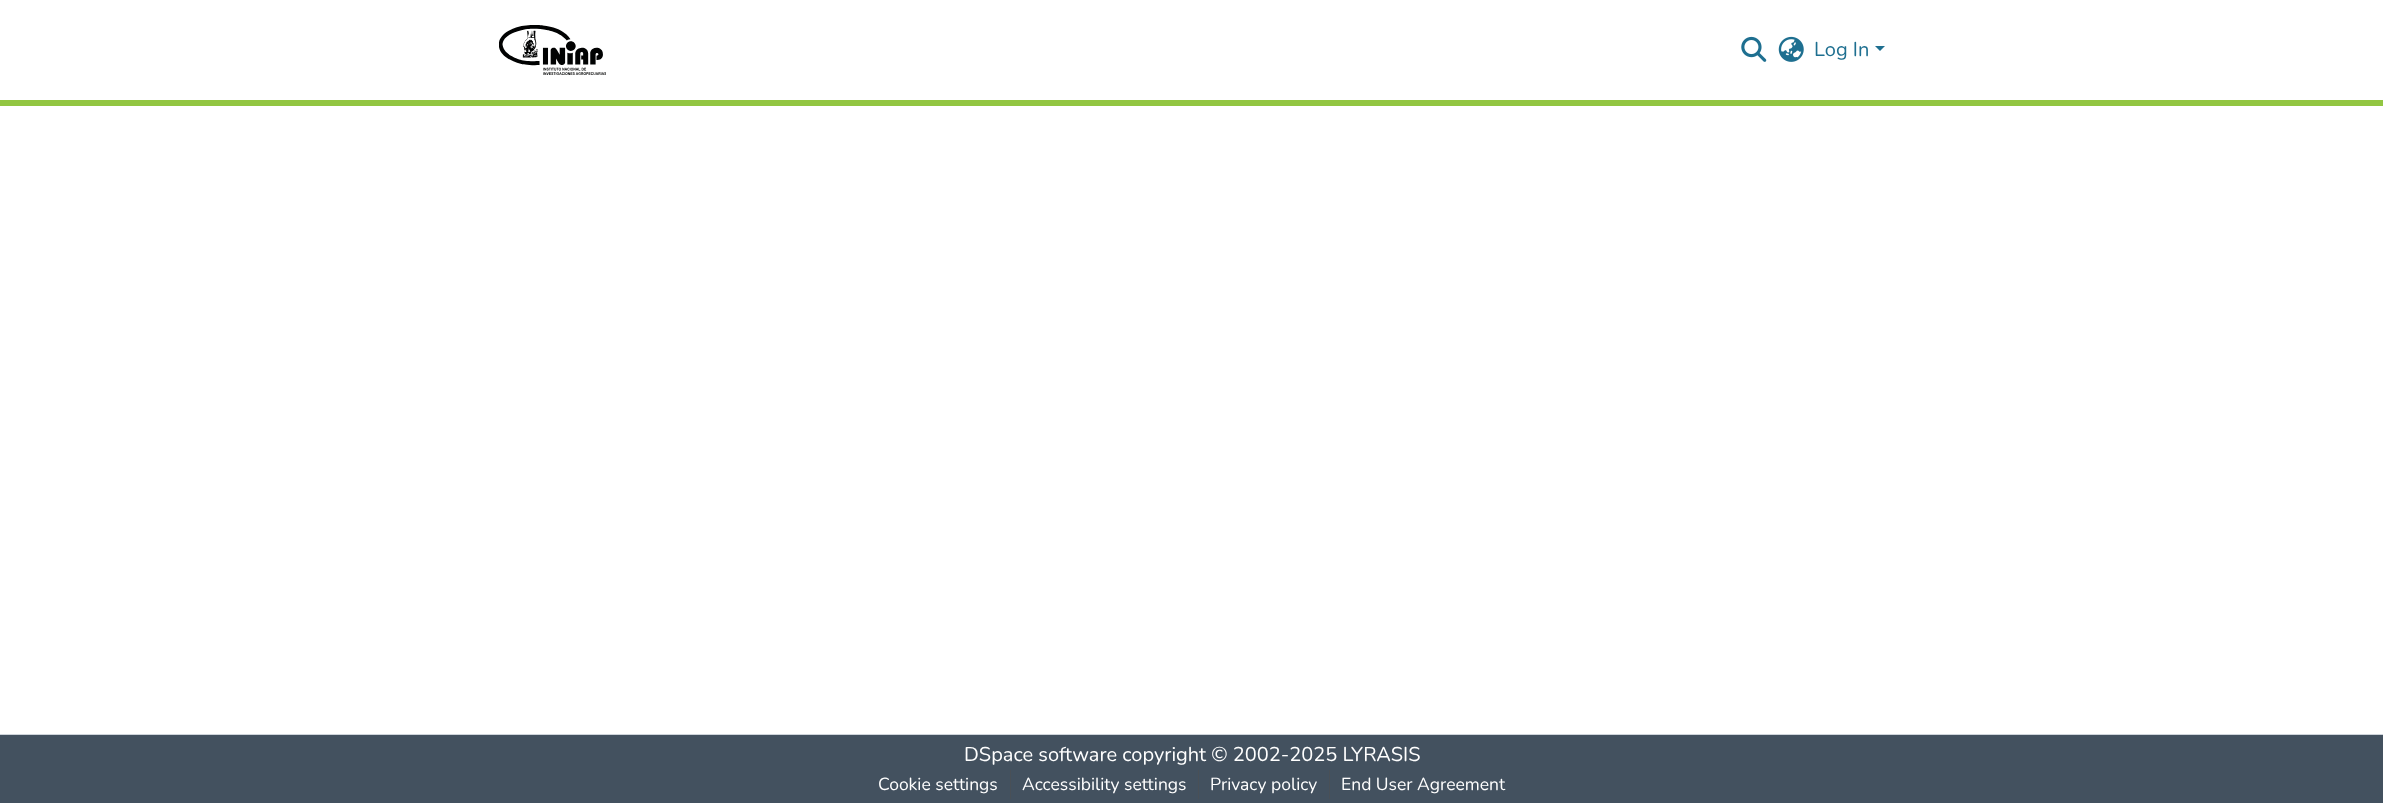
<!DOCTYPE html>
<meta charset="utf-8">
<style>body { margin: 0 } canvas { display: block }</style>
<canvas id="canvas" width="2383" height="803"></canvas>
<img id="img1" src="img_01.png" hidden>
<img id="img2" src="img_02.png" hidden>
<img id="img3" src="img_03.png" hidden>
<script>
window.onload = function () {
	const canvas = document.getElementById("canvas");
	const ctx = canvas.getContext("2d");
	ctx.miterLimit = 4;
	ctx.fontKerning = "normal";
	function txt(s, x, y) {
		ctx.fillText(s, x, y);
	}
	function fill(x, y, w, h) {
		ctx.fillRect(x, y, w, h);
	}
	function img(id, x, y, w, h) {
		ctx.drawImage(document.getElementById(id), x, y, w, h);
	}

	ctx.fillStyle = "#FFFFFF";
	fill(0, 0, 2383, 803);
	ctx.fillStyle = "#92C642";
	fill(0, 100, 2383, 6);
	img("img1", 499, 25, 107, 50);
	img("img2", 1741, 36, 26, 26);
	img("img3", 1778, 36, 26, 26);
	ctx.fillStyle = "#1E6F90";
	ctx.beginPath();
	ctx.moveTo(1875, 46);
	ctx.lineTo(1885, 46);
	ctx.lineTo(1880, 51);
	ctx.closePath();
	ctx.fill();
	ctx.fillStyle = "#43515F";
	fill(0, 735, 2383, 68);
	ctx.fillStyle = "#CED4DA";
	fill(0, 734, 2383, 1);
	ctx.fillStyle = "#495057";
	fill(1010, 770, 1, 29);
	fill(1198, 770, 1, 29);
	fill(1329, 770, 1, 29);
	ctx.font = "20px Nunito";
	ctx.fillStyle = "#1E6F90";
	txt("Log In", 1814, 56);
	ctx.fillStyle = "#FFFFFF";
	txt("DSpace software copyright © 2002-2025 LYRASIS", 964, 761);
	ctx.font = "17.5px Nunito";
	txt("Cookie settings", 878, 790);
	txt("Accessibility settings", 1022, 790);
	txt("Privacy policy", 1210, 790);
	txt("End User Agreement", 1341, 790);
};
</script>
